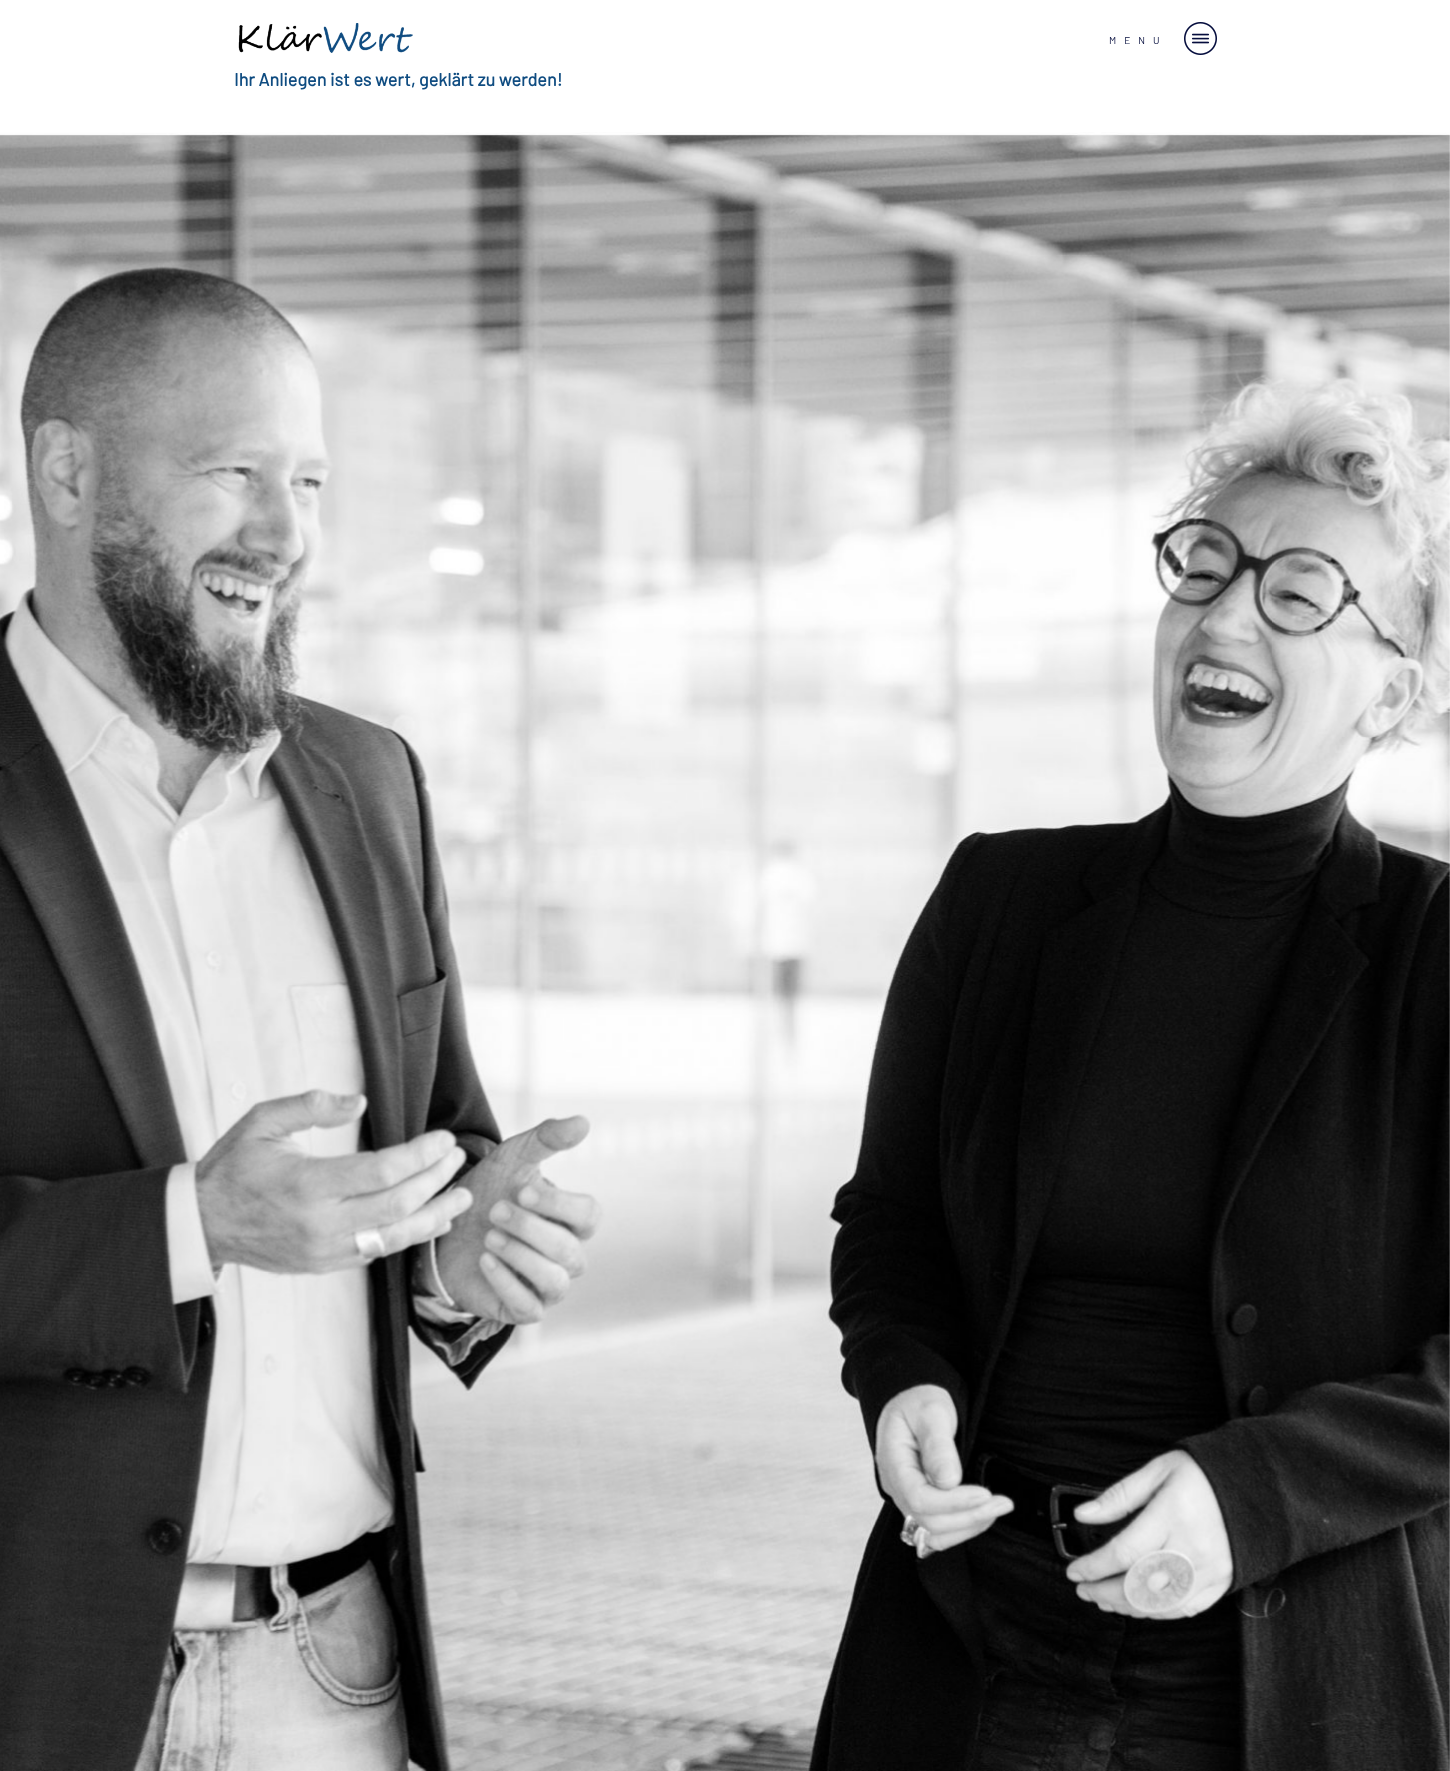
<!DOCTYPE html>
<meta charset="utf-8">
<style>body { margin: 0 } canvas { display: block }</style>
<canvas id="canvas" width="1450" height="1771"></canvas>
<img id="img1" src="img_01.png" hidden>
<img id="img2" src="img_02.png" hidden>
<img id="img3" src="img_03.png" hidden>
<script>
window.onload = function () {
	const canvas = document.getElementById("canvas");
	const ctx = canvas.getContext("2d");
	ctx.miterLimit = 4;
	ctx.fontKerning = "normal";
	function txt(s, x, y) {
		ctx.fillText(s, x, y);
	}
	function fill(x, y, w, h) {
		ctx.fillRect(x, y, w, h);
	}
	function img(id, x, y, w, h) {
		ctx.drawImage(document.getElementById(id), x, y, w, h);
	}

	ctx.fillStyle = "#FFFFFF";
	fill(0, 0, 1450, 1771);
	img("img1", 238, 23, 175, 30);
	img("img2", 1184, 22, 33, 33);
	img("img3", 0, 132, 1450, 1639);
	ctx.letterSpacing = "8px";
	ctx.font = "10px Barlow";
	ctx.fillStyle = "#050D3D";
	txt("MENU", 1109, 44);
	ctx.letterSpacing = "0px";
	ctx.font = "bold 18px Barlow";
	ctx.fillStyle = "#0F4C81";
	txt("Ihr Anliegen ist es wert, geklärt zu werden!", 234, 86);
};
</script>
